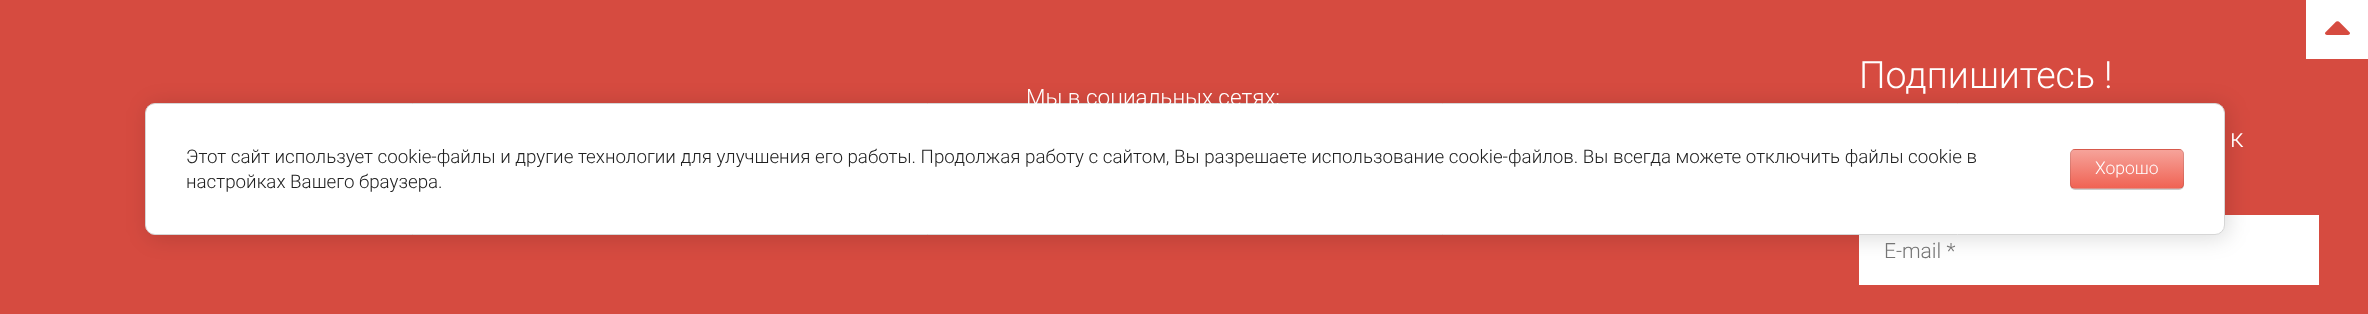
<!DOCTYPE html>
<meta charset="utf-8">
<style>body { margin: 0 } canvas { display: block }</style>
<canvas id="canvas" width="2368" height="314"></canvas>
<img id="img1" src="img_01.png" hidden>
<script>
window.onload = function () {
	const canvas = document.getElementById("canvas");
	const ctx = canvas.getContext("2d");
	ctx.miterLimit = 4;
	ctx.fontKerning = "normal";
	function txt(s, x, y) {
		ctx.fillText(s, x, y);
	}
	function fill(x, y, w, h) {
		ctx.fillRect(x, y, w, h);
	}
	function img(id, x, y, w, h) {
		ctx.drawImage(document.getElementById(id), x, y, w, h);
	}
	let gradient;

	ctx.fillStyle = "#D64B40";
	fill(0, 0, 2368, 314);
	ctx.fillStyle = "#FFFFFF";
	fill(2306, 0, 62, 59);
	img("img1", 2325, 21, 25, 14);
	fill(1859, 215, 460, 70);
	ctx.fillStyle = "rgba(0, 0, 0, 0.14)";
	ctx.filter = "blur(11px)";
	ctx.beginPath();
	ctx.roundRect(148, 105, 2080, 133, 10);
	ctx.fill();
	ctx.filter = "none";
	ctx.fillStyle = "#FFFFFF";
	ctx.beginPath();
	ctx.roundRect(145.5, 103.5, 2079, 131, 9.5);
	ctx.fill();
	ctx.strokeStyle = "#D6D6D6";
	ctx.stroke();
	ctx.fillStyle = "rgba(0, 0, 0, 0.2)";
	ctx.filter = "blur(0.5px)";
	ctx.beginPath();
	ctx.roundRect(2070, 150, 114, 40, 5);
	ctx.fill();
	ctx.filter = "none";
	ctx.save();
	ctx.beginPath();
	ctx.roundRect(2070, 149, 114, 40, 5);
	ctx.clip();
	gradient = ctx.createLinearGradient(2127, 113, 2127, 150);
	gradient.addColorStop(0, "#F6A39A");
	gradient.addColorStop(1, "#F06354");
	ctx.fillStyle = gradient;
	fill(2070, 149, 114, 1);
	gradient = ctx.createLinearGradient(2127, 150, 2127, 188);
	gradient.addColorStop(0, "#F6A39A");
	gradient.addColorStop(1, "#F06354");
	ctx.fillStyle = gradient;
	fill(2070, 150, 114, 38);
	gradient = ctx.createLinearGradient(2127, 188, 2127, 225);
	gradient.addColorStop(0, "#F6A39A");
	gradient.addColorStop(1, "#F06354");
	ctx.fillStyle = gradient;
	fill(2070, 188, 114, 1);
	ctx.restore();
	ctx.beginPath();
	ctx.roundRect(2070.5, 149.5, 113, 39, 4.5);
	ctx.strokeStyle = "rgba(0, 0, 0, 0.1)";
	ctx.stroke();
	ctx.font = "300 22.5px Roboto";
	ctx.fillStyle = "#FFFFFF";
	txt("Мы в социальных сетях:", 1026, 105);
	ctx.font = "300 37.5px Roboto";
	txt("Подпишитесь !", 1859, 88);
	ctx.font = "300 26px Roboto";
	txt("к", 2230, 147);
	ctx.font = "300 21px Roboto";
	ctx.fillStyle = "#757575";
	txt("E-mail *", 1884, 258);
	ctx.font = "300 18.75px Roboto";
	ctx.fillStyle = "#212121";
	txt("Этот сайт использует cookie-файлы и другие технологии для улучшения его работы. Продолжая работу с сайтом, Вы разрешаете использование cookie-файлов. Вы всегда можете отключить файлы cookie в", 186, 163);
	txt("настройках Вашего браузера.", 186, 188);
	ctx.font = "300 17.5px Roboto";
	ctx.fillStyle = "#FFFFFF";
	txt("Хорошо", 2095, 174);
};
</script>
